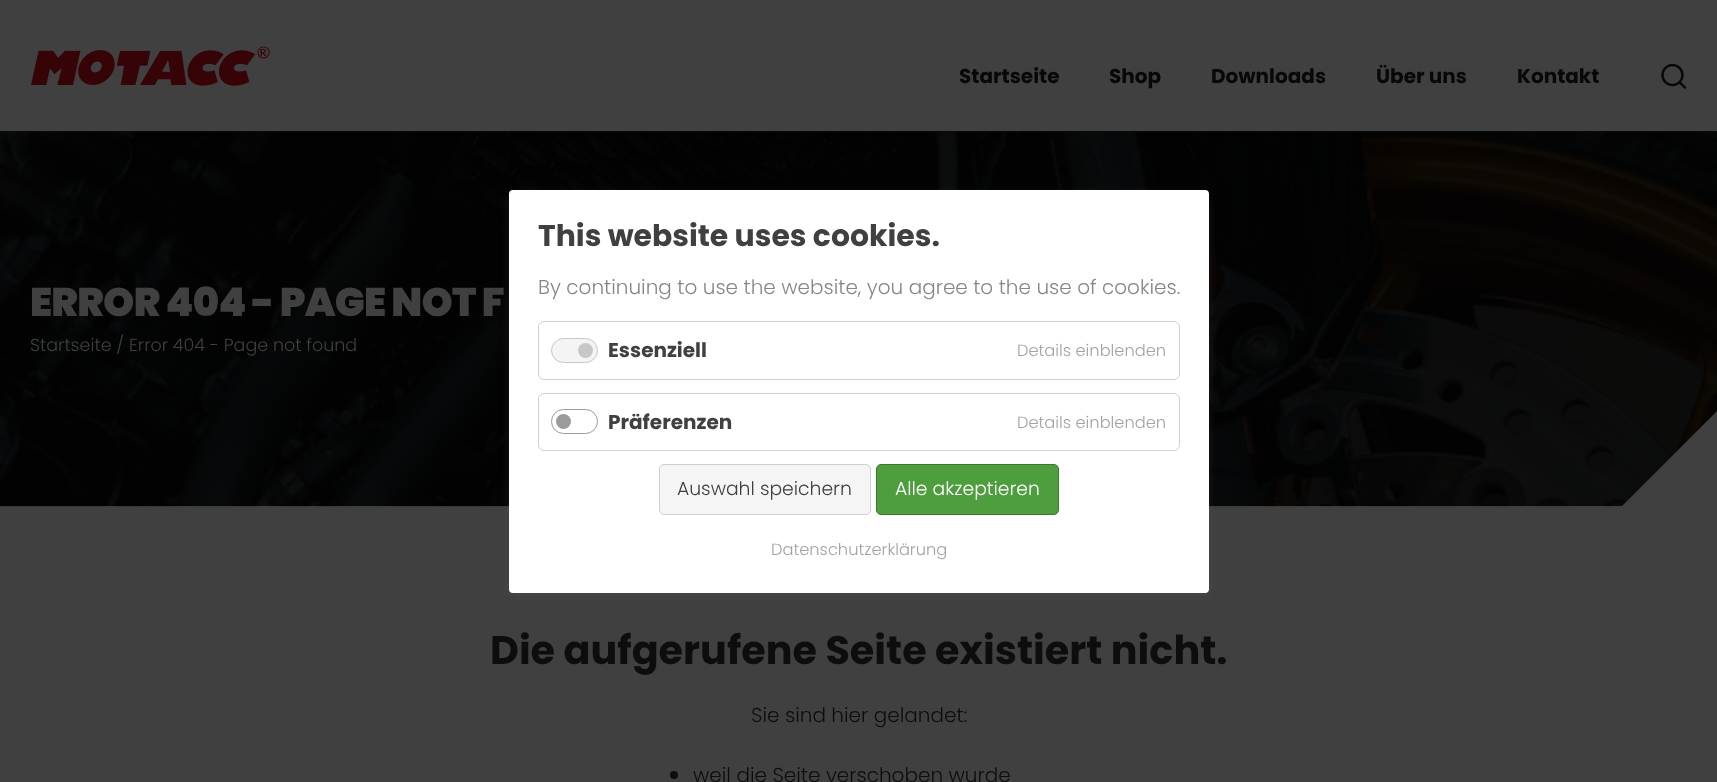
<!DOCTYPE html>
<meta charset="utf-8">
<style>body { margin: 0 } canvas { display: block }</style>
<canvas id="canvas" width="1717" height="782"></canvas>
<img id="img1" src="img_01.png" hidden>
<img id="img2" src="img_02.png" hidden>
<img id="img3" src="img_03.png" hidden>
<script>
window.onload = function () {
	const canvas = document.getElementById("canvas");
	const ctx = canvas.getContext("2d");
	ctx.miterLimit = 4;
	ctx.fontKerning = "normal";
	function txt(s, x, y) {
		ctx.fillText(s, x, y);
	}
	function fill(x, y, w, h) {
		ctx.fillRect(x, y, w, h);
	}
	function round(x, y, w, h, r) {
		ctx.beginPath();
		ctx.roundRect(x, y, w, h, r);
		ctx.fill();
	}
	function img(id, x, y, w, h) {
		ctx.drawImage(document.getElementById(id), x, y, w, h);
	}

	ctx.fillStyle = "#404040";
	fill(0, 0, 1717, 782);
	img("img1", 31, 46, 239, 40);
	img("img2", 1661, 63, 26, 26);
	ctx.fillStyle = "#363636";
	ctx.beginPath();
	ctx.moveTo(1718, 131);
	ctx.lineTo(0, 131);
	ctx.lineTo(0, 506);
	ctx.lineTo(1622, 506);
	ctx.lineTo(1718, 410);
	ctx.closePath();
	ctx.fill();
	img("img3", 0, 131, 1717, 376);
	ctx.fillStyle = "rgba(3, 2, 2, 0.8)";
	ctx.beginPath();
	ctx.moveTo(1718, 131);
	ctx.lineTo(0, 131);
	ctx.lineTo(0, 506);
	ctx.lineTo(1622, 506);
	ctx.lineTo(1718, 410);
	ctx.closePath();
	ctx.fill();
	ctx.fillStyle = "#0D0D0E";
	ctx.beginPath();
	ctx.arc(674, 775, 4, 0, Math.PI * 2);
	ctx.fill();
	ctx.fillStyle = "rgba(99, 99, 99, 0.2)";
	ctx.filter = "blur(5px)";
	ctx.beginPath();
	ctx.roundRect(509, 193, 700, 402, 4);
	ctx.fill();
	ctx.filter = "none";
	ctx.fillStyle = "#FFFFFF";
	round(509, 190, 700, 403, 4);
	ctx.beginPath();
	ctx.roundRect(538.5, 321.5, 641, 58, 5.5);
	ctx.strokeStyle = "#D0D0D0";
	ctx.stroke();
	ctx.fillStyle = "#F4F4F4";
	ctx.beginPath();
	ctx.roundRect(551.5, 338.5, 46, 24, 12);
	ctx.fill();
	ctx.strokeStyle = "#C8C7C5";
	ctx.stroke();
	ctx.fillStyle = "#C8C7C5";
	ctx.beginPath();
	ctx.arc(585.5, 350.5, 7.5, 0, Math.PI * 2);
	ctx.fill();
	ctx.beginPath();
	ctx.roundRect(538.5, 393.5, 641, 57, 5.5);
	ctx.strokeStyle = "#D0D0D0";
	ctx.stroke();
	ctx.beginPath();
	ctx.roundRect(551.5, 409.5, 46, 24, 12);
	ctx.strokeStyle = "#9C9B99";
	ctx.stroke();
	ctx.fillStyle = "#9C9B99";
	ctx.beginPath();
	ctx.arc(563.5, 421.5, 7.5, 0, Math.PI * 2);
	ctx.fill();
	ctx.fillStyle = "#F5F5F5";
	ctx.beginPath();
	ctx.roundRect(659.5, 464.5, 211, 50, 4.5);
	ctx.fill();
	ctx.strokeStyle = "#CFCFCF";
	ctx.stroke();
	ctx.fillStyle = "#4E9E3E";
	ctx.beginPath();
	ctx.roundRect(876.5, 464.5, 182, 50, 4.5);
	ctx.fill();
	ctx.strokeStyle = "#3E7830";
	ctx.stroke();
	ctx.font = "bold 20px Poppins";
	ctx.fillStyle = "#080808";
	txt("Startseite", 959, 83);
	txt("Shop", 1109, 83);
	txt("Downloads", 1211, 83);
	txt("Über uns", 1376, 83);
	txt("Kontakt", 1517, 83);
	ctx.letterSpacing = "-0.75px";
	ctx.font = "900 39.75px Poppins";
	ctx.fillStyle = "#404040";
	txt("ERROR 404 - PAGE NOT F", 30, 316);
	ctx.letterSpacing = "0px";
	ctx.font = "300 17.5px Poppins";
	txt("Startseite /", 30, 351);
	txt("Error 404 - Page not found", 129, 351);
	ctx.font = "bold 39.75px Poppins";
	ctx.fillStyle = "#0D0D0E";
	txt("Die aufgerufene Seite existiert nicht.", 490, 664);
	ctx.font = "300 20px Poppins";
	txt("Sie sind hier gelandet:", 751, 722);
	txt("weil die Seite verschoben wurde", 693, 782);
	ctx.font = "bold 29.9px Poppins";
	ctx.fillStyle = "#404040";
	txt("This website uses cookies.", 538, 246);
	ctx.font = "300 20px Poppins";
	ctx.fillStyle = "#868686";
	txt("By continuing to use the website, you agree to the use of cookies.", 538, 294);
	ctx.font = "bold 20px Poppins";
	ctx.fillStyle = "#404040";
	txt("Essenziell", 608, 357);
	ctx.font = "300 16.25px Poppins";
	ctx.fillStyle = "#A2A2A2";
	txt("Details einblenden", 1017, 356);
	ctx.font = "bold 20px Poppins";
	ctx.fillStyle = "#404040";
	txt("Präferenzen", 608, 429);
	ctx.font = "300 16.25px Poppins";
	ctx.fillStyle = "#A2A2A2";
	txt("Details einblenden", 1017, 428);
	ctx.font = "300 18.75px Poppins";
	ctx.fillStyle = "#404040";
	txt("Auswahl speichern", 677, 495);
	ctx.fillStyle = "#FFFFFF";
	txt("Alle akzeptieren", 895, 495);
	ctx.font = "300 16.25px Poppins";
	ctx.fillStyle = "#A2A2A2";
	txt("Datenschutzerklärung", 771, 555);
};
</script>
